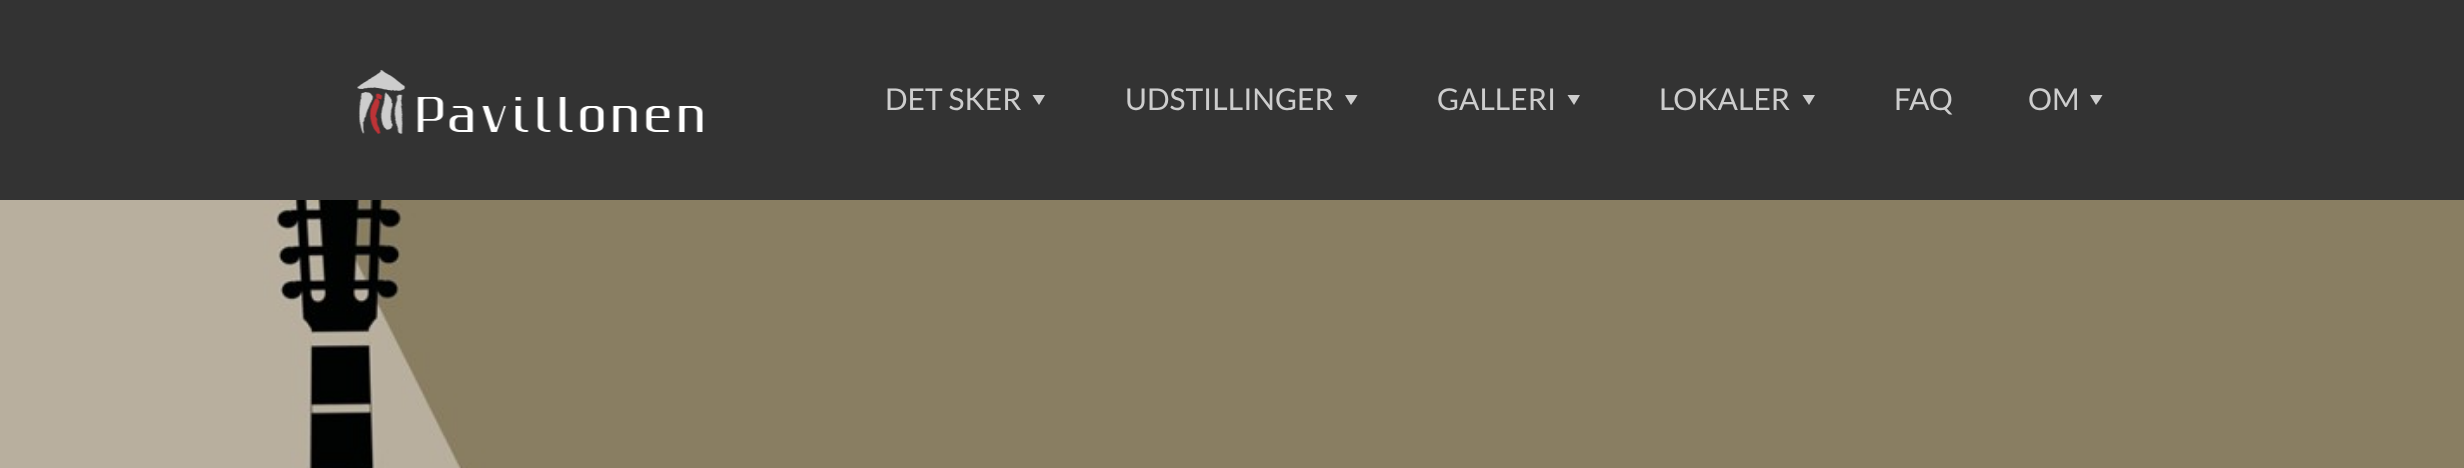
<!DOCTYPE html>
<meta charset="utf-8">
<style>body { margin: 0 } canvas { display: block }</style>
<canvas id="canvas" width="2464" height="468"></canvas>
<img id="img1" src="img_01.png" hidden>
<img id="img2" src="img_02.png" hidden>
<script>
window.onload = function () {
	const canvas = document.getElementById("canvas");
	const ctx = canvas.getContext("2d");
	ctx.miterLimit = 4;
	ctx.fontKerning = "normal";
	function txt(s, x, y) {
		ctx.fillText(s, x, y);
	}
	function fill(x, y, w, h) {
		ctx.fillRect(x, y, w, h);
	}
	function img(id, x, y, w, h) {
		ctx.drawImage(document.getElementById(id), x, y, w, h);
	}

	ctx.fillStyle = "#333333";
	fill(0, 0, 2464, 468);
	img("img1", 357, 70, 346, 64);
	ctx.fillStyle = "#CDCDCD";
	ctx.beginPath();
	ctx.moveTo(1039, 105);
	ctx.lineTo(1032.5, 95);
	ctx.lineTo(1045, 95);
	ctx.lineTo(1042, 100);
	ctx.closePath();
	ctx.fill();
	ctx.beginPath();
	ctx.moveTo(1351, 105);
	ctx.lineTo(1345, 95);
	ctx.lineTo(1357.5, 95);
	ctx.lineTo(1354.5, 100);
	ctx.closePath();
	ctx.fill();
	ctx.beginPath();
	ctx.moveTo(1574, 105);
	ctx.lineTo(1567.5, 95);
	ctx.lineTo(1580, 95);
	ctx.lineTo(1577, 100);
	ctx.closePath();
	ctx.fill();
	ctx.beginPath();
	ctx.moveTo(1809, 105);
	ctx.lineTo(1802.5, 95);
	ctx.lineTo(1815, 95);
	ctx.lineTo(1812, 100);
	ctx.closePath();
	ctx.fill();
	ctx.beginPath();
	ctx.moveTo(2096, 105);
	ctx.lineTo(2090, 95);
	ctx.lineTo(2102.5, 95);
	ctx.lineTo(2099.5, 100);
	ctx.closePath();
	ctx.fill();
	img("img2", 0, 200, 2464, 268);
	ctx.font = "30px Lato";
	txt("DET SKER", 885, 110);
	txt("UDSTILLINGER", 1125, 110);
	txt("GALLERI", 1437, 110);
	txt("LOKALER", 1659, 110);
	txt("FAQ", 1894, 110);
	txt("OM", 2028, 110);
};
</script>
